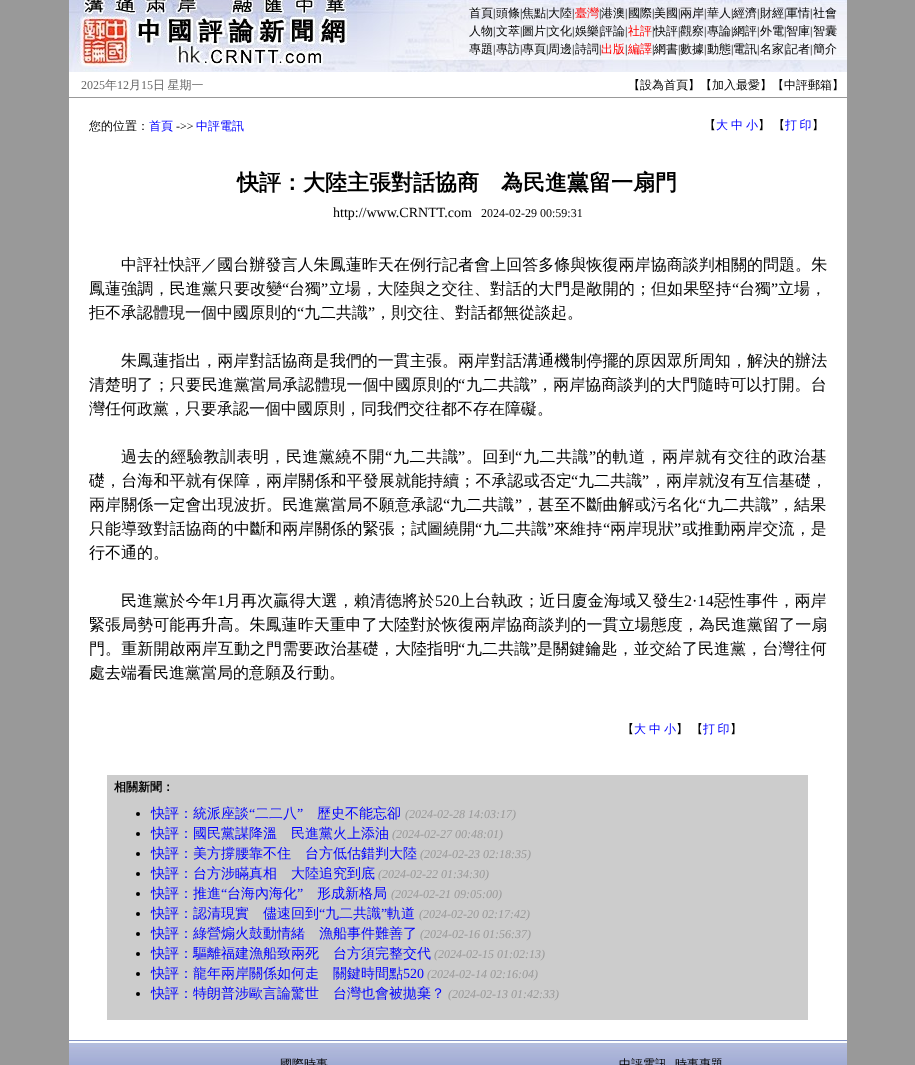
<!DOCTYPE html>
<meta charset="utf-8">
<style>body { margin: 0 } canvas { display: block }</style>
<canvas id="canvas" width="915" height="1065"></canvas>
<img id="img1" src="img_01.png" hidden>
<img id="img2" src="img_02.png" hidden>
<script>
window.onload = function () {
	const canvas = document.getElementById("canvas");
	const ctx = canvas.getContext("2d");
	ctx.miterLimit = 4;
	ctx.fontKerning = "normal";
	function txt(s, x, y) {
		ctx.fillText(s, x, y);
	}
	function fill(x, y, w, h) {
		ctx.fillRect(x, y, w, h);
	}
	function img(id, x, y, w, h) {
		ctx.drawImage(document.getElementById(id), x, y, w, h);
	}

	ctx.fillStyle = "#999999";
	fill(0, 0, 915, 1065);
	img("img1", 69, 0, 778, 72);
	ctx.fillStyle = "#FFFFFF";
	fill(69, 72, 778, 25);
	fill(69, 98, 778, 942);
	ctx.fillStyle = "#CCCCCC";
	fill(107, 775, 701, 245);
	ctx.fillStyle = "#000000";
	ctx.beginPath();
	ctx.arc(138, 814, 2, 0, Math.PI * 2);
	ctx.fill();
	ctx.beginPath();
	ctx.arc(138, 834, 2, 0, Math.PI * 2);
	ctx.fill();
	ctx.beginPath();
	ctx.arc(138, 854, 2, 0, Math.PI * 2);
	ctx.fill();
	ctx.beginPath();
	ctx.arc(138, 874, 2, 0, Math.PI * 2);
	ctx.fill();
	ctx.beginPath();
	ctx.arc(138, 894, 2, 0, Math.PI * 2);
	ctx.fill();
	ctx.beginPath();
	ctx.arc(138, 914, 2, 0, Math.PI * 2);
	ctx.fill();
	ctx.beginPath();
	ctx.arc(138, 934, 2, 0, Math.PI * 2);
	ctx.fill();
	ctx.beginPath();
	ctx.arc(138, 954, 2, 0, Math.PI * 2);
	ctx.fill();
	ctx.beginPath();
	ctx.arc(138, 974, 2, 0, Math.PI * 2);
	ctx.fill();
	ctx.beginPath();
	ctx.arc(138, 994, 2, 0, Math.PI * 2);
	ctx.fill();
	img("img2", 69, 1040, 778, 25);
	ctx.font = "500 12px WenQuanYi Zen Hei";
	txt("首頁", 469, 17);
	ctx.font = "12px Liberation Serif";
	txt("|", 493, 17);
	ctx.font = "500 12px WenQuanYi Zen Hei";
	txt("頭條", 496, 17);
	ctx.font = "12px Liberation Serif";
	txt("|", 520, 17);
	ctx.font = "500 12px WenQuanYi Zen Hei";
	txt("焦點", 522, 17);
	ctx.font = "12px Liberation Serif";
	txt("|", 546, 17);
	ctx.font = "500 12px WenQuanYi Zen Hei";
	txt("大陸", 548, 17);
	ctx.font = "12px Liberation Serif";
	txt("|", 572, 17);
	ctx.font = "500 12px WenQuanYi Zen Hei";
	ctx.fillStyle = "#FF0000";
	txt("臺灣", 575, 17);
	ctx.font = "12px Liberation Serif";
	ctx.fillStyle = "#000000";
	txt("|", 599, 17);
	ctx.font = "500 12px WenQuanYi Zen Hei";
	txt("港澳", 601, 17);
	ctx.font = "12px Liberation Serif";
	txt("|", 625, 17);
	ctx.font = "500 12px WenQuanYi Zen Hei";
	txt("國際", 628, 17);
	ctx.font = "12px Liberation Serif";
	txt("|", 652, 17);
	ctx.font = "500 12px WenQuanYi Zen Hei";
	txt("美國", 654, 17);
	ctx.font = "12px Liberation Serif";
	txt("|", 678, 17);
	ctx.font = "500 12px WenQuanYi Zen Hei";
	txt("兩岸", 680, 17);
	ctx.font = "12px Liberation Serif";
	txt("|", 704, 17);
	ctx.font = "500 12px WenQuanYi Zen Hei";
	txt("華人", 707, 17);
	ctx.font = "12px Liberation Serif";
	txt("|", 731, 17);
	ctx.font = "500 12px WenQuanYi Zen Hei";
	txt("經濟", 733, 17);
	ctx.font = "12px Liberation Serif";
	txt("|", 757, 17);
	ctx.font = "500 12px WenQuanYi Zen Hei";
	txt("財經", 760, 17);
	ctx.font = "12px Liberation Serif";
	txt("|", 784, 17);
	ctx.font = "500 12px WenQuanYi Zen Hei";
	txt("軍情", 786, 17);
	ctx.font = "12px Liberation Serif";
	txt("|", 810, 17);
	ctx.font = "500 12px WenQuanYi Zen Hei";
	txt("社會", 813, 17);
	txt("人物", 469, 35);
	ctx.font = "12px Liberation Serif";
	txt("|", 493, 35);
	ctx.font = "500 12px WenQuanYi Zen Hei";
	txt("文萃", 496, 35);
	ctx.font = "12px Liberation Serif";
	txt("|", 520, 35);
	ctx.font = "500 12px WenQuanYi Zen Hei";
	txt("圖片", 522, 35);
	ctx.font = "12px Liberation Serif";
	txt("|", 546, 35);
	ctx.font = "500 12px WenQuanYi Zen Hei";
	txt("文化", 548, 35);
	ctx.font = "12px Liberation Serif";
	txt("|", 572, 35);
	ctx.font = "500 12px WenQuanYi Zen Hei";
	txt("娛樂", 575, 35);
	ctx.font = "12px Liberation Serif";
	txt("|", 599, 35);
	ctx.font = "500 12px WenQuanYi Zen Hei";
	txt("評論", 601, 35);
	ctx.font = "12px Liberation Serif";
	txt("|", 625, 35);
	ctx.font = "500 12px WenQuanYi Zen Hei";
	ctx.fillStyle = "#FF0000";
	txt("社評", 628, 35);
	ctx.fillStyle = "#000000";
	txt("觀察", 680, 35);
	txt("專論", 707, 35);
	txt("網評", 733, 35);
	txt("外電", 760, 35);
	txt("智庫", 786, 35);
	txt("智囊", 813, 35);
	ctx.font = "12px Liberation Serif";
	txt("|", 652, 35);
	ctx.font = "500 12px WenQuanYi Zen Hei";
	txt("快評", 654, 35);
	ctx.font = "12px Liberation Serif";
	txt("|", 678, 35);
	txt("|", 704, 35);
	txt("|", 731, 35);
	txt("|", 757, 35);
	txt("|", 784, 35);
	txt("|", 810, 35);
	ctx.font = "500 12px WenQuanYi Zen Hei";
	txt("專題", 469, 53);
	ctx.font = "12px Liberation Serif";
	txt("|", 493, 53);
	ctx.font = "500 12px WenQuanYi Zen Hei";
	txt("專訪", 496, 53);
	ctx.font = "12px Liberation Serif";
	txt("|", 520, 53);
	ctx.font = "500 12px WenQuanYi Zen Hei";
	txt("專頁", 522, 53);
	ctx.font = "12px Liberation Serif";
	txt("|", 546, 53);
	ctx.font = "500 12px WenQuanYi Zen Hei";
	txt("周邊", 548, 53);
	ctx.font = "12px Liberation Serif";
	txt("|", 572, 53);
	ctx.font = "500 12px WenQuanYi Zen Hei";
	txt("詩詞", 575, 53);
	ctx.font = "12px Liberation Serif";
	txt("|", 599, 53);
	ctx.font = "500 12px WenQuanYi Zen Hei";
	ctx.fillStyle = "#FF0000";
	txt("出版", 601, 53);
	ctx.font = "12px Liberation Serif";
	ctx.fillStyle = "#000000";
	txt("|", 625, 53);
	ctx.font = "500 12px WenQuanYi Zen Hei";
	ctx.fillStyle = "#FF0000";
	txt("編譯", 628, 53);
	ctx.font = "12px Liberation Serif";
	ctx.fillStyle = "#000000";
	txt("|", 652, 53);
	ctx.font = "500 12px WenQuanYi Zen Hei";
	txt("網書", 654, 53);
	ctx.font = "12px Liberation Serif";
	txt("|", 678, 53);
	ctx.font = "500 12px WenQuanYi Zen Hei";
	txt("數據", 680, 53);
	ctx.font = "12px Liberation Serif";
	txt("|", 704, 53);
	ctx.font = "500 12px WenQuanYi Zen Hei";
	txt("動態", 707, 53);
	ctx.font = "12px Liberation Serif";
	txt("|", 731, 53);
	ctx.font = "500 12px WenQuanYi Zen Hei";
	txt("電訊", 733, 53);
	ctx.font = "12px Liberation Serif";
	txt("|", 757, 53);
	ctx.font = "500 12px WenQuanYi Zen Hei";
	txt("名家", 760, 53);
	ctx.font = "12px Liberation Serif";
	txt("|", 784, 53);
	ctx.font = "500 12px WenQuanYi Zen Hei";
	txt("記者", 786, 53);
	ctx.font = "12px Liberation Serif";
	txt("|", 810, 53);
	ctx.font = "500 12px WenQuanYi Zen Hei";
	txt("簡介", 813, 53);
	ctx.font = "12px Liberation Serif";
	ctx.fillStyle = "#666666";
	txt("2025", 81, 89);
	ctx.font = "500 12px WenQuanYi Zen Hei";
	txt("年", 105, 89);
	ctx.font = "12px Liberation Serif";
	txt("12", 117, 89);
	ctx.font = "500 12px WenQuanYi Zen Hei";
	txt("月", 129, 89);
	ctx.font = "12px Liberation Serif";
	txt("15", 141, 89);
	ctx.wordSpacing = "-1px";
	ctx.font = "500 12px WenQuanYi Zen Hei";
	txt("日 星期一", 153, 89);
	ctx.wordSpacing = "0px";
	ctx.fillStyle = "#000000";
	txt("【設為首頁】【加入最愛】【中評郵箱】", 628, 89);
	txt("您的位置：", 89, 130);
	ctx.fillStyle = "#0000FF";
	txt("首頁", 149, 130);
	ctx.font = "12px Liberation Serif";
	ctx.fillStyle = "#000000";
	txt("->>", 176, 130);
	ctx.font = "500 12px WenQuanYi Zen Hei";
	ctx.fillStyle = "#0000FF";
	txt("中評電訊", 196, 130);
	ctx.fillStyle = "#000000";
	txt("【", 704, 129);
	ctx.fillStyle = "#0000FF";
	txt("大", 716, 129);
	txt("中", 731, 129);
	txt("小", 746, 129);
	ctx.fillStyle = "#000000";
	txt("】", 758, 129);
	txt("【", 773, 129);
	ctx.wordSpacing = "-1px";
	ctx.fillStyle = "#0000FF";
	txt("打 印", 785, 129);
	ctx.wordSpacing = "0px";
	ctx.fillStyle = "#000000";
	txt("】", 812, 129);
	ctx.font = "bold 22px WenQuanYi Zen Hei";
	txt("快評：大陸主張對話協商　為民進黨留一扇門", 237, 190);
	ctx.font = "14px Liberation Serif";
	txt("http://www.CRNTT.com", 333, 217);
	ctx.font = "12px Liberation Serif";
	txt("2024-02-29 00:59:31", 481, 217);
	ctx.letterSpacing = "0.05px";
	ctx.font = "500 16px WenQuanYi Zen Hei";
	txt("中評社快評／國台辦發言人朱鳳蓮昨天在例行記者會上回答多條與恢復兩岸協商談判相關的問題。朱", 121, 270);
	ctx.letterSpacing = "0.1px";
	txt("鳳蓮強調，民進黨只要改變", 89, 294);
	ctx.font = "16px Liberation Serif";
	txt("“", 282, 294);
	ctx.font = "500 16px WenQuanYi Zen Hei";
	txt("台獨", 289, 294);
	ctx.font = "16px Liberation Serif";
	txt("”", 321, 294);
	ctx.font = "500 16px WenQuanYi Zen Hei";
	txt("立場，大陸與之交往、對話的大門是敞開的；但如果堅持", 329, 294);
	ctx.font = "16px Liberation Serif";
	txt("“", 732, 294);
	ctx.font = "500 16px WenQuanYi Zen Hei";
	txt("台獨", 739, 294);
	ctx.font = "16px Liberation Serif";
	txt("”", 771, 294);
	ctx.font = "500 16px WenQuanYi Zen Hei";
	txt("立場，", 778, 294);
	ctx.letterSpacing = "0px";
	txt("拒不承認體現一個中國原則的", 89, 318);
	ctx.font = "16px Liberation Serif";
	txt("“", 297, 318);
	ctx.font = "500 16px WenQuanYi Zen Hei";
	txt("九二共識", 304, 318);
	ctx.font = "16px Liberation Serif";
	txt("”", 368, 318);
	ctx.font = "500 16px WenQuanYi Zen Hei";
	txt("，則交往、對話都無從談起。", 375, 318);
	ctx.letterSpacing = "0.05px";
	txt("朱鳳蓮指出，兩岸對話協商是我們的一貫主張。兩岸對話溝通機制停擺的原因眾所周知，解決的辦法", 121, 366);
	ctx.letterSpacing = "0.1px";
	txt("清楚明了；只要民進黨當局承認體現一個中國原則的", 89, 390);
	ctx.font = "16px Liberation Serif";
	txt("“", 458, 390);
	ctx.font = "500 16px WenQuanYi Zen Hei";
	txt("九二共識", 466, 390);
	ctx.font = "16px Liberation Serif";
	txt("”", 530, 390);
	ctx.font = "500 16px WenQuanYi Zen Hei";
	txt("，兩岸協商談判的大門隨時可以打開。台", 537, 390);
	ctx.letterSpacing = "0px";
	txt("灣任何政黨，只要承認一個中國原則，同我們交往都不存在障礙。", 89, 414);
	ctx.letterSpacing = "0.5px";
	txt("過去的經驗教訓表明，民進黨繞不開", 121, 462);
	ctx.font = "16px Liberation Serif";
	txt("“", 385, 462);
	ctx.font = "500 16px WenQuanYi Zen Hei";
	txt("九二共識", 393, 462);
	ctx.font = "16px Liberation Serif";
	txt("”", 458, 462);
	ctx.font = "500 16px WenQuanYi Zen Hei";
	txt("。回到", 466, 462);
	ctx.font = "16px Liberation Serif";
	txt("“", 515, 462);
	ctx.font = "500 16px WenQuanYi Zen Hei";
	txt("九二共識", 523, 462);
	ctx.font = "16px Liberation Serif";
	txt("”", 589, 462);
	ctx.font = "500 16px WenQuanYi Zen Hei";
	txt("的軌道，兩岸就有交往的政治基", 596, 462);
	ctx.letterSpacing = "0.1px";
	txt("礎，台海和平就有保障，兩岸關係和平發展就能持續；不承認或否定", 89, 486);
	ctx.font = "16px Liberation Serif";
	txt("“", 571, 486);
	ctx.font = "500 16px WenQuanYi Zen Hei";
	txt("九二共識", 578, 486);
	ctx.font = "16px Liberation Serif";
	txt("”", 642, 486);
	ctx.font = "500 16px WenQuanYi Zen Hei";
	txt("，兩岸就沒有互信基礎，", 650, 486);
	txt("兩岸關係一定會出現波折。民進黨當局不願意承認", 89, 510);
	ctx.font = "16px Liberation Serif";
	txt("“", 443, 510);
	ctx.font = "500 16px WenQuanYi Zen Hei";
	txt("九二共識", 450, 510);
	ctx.font = "16px Liberation Serif";
	txt("”", 515, 510);
	ctx.font = "500 16px WenQuanYi Zen Hei";
	txt("，甚至不斷曲解或污名化", 522, 510);
	ctx.font = "16px Liberation Serif";
	txt("“", 699, 510);
	ctx.font = "500 16px WenQuanYi Zen Hei";
	txt("九二共識", 707, 510);
	ctx.font = "16px Liberation Serif";
	txt("”", 771, 510);
	ctx.font = "500 16px WenQuanYi Zen Hei";
	txt("，結果", 778, 510);
	txt("只能導致對話協商的中斷和兩岸關係的緊張；試圖繞開", 89, 534);
	ctx.font = "16px Liberation Serif";
	txt("“", 475, 534);
	ctx.font = "500 16px WenQuanYi Zen Hei";
	txt("九二共識", 483, 534);
	ctx.font = "16px Liberation Serif";
	txt("”", 547, 534);
	ctx.font = "500 16px WenQuanYi Zen Hei";
	txt("來維持", 554, 534);
	ctx.font = "16px Liberation Serif";
	txt("“", 603, 534);
	ctx.font = "500 16px WenQuanYi Zen Hei";
	txt("兩岸現狀", 610, 534);
	ctx.font = "16px Liberation Serif";
	txt("”", 674, 534);
	ctx.font = "500 16px WenQuanYi Zen Hei";
	txt("或推動兩岸交流，是", 682, 534);
	ctx.letterSpacing = "0px";
	txt("行不通的。", 89, 558);
	ctx.letterSpacing = "0.1px";
	txt("民進黨於今年", 121, 606);
	ctx.font = "16px Liberation Serif";
	txt("1", 217, 606);
	ctx.font = "500 16px WenQuanYi Zen Hei";
	txt("月再次贏得大選，賴清德將於", 225, 606);
	ctx.font = "16px Liberation Serif";
	txt("520", 435, 606);
	ctx.font = "500 16px WenQuanYi Zen Hei";
	txt("上台執政；近日廈金海域又發生", 459, 606);
	ctx.font = "16px Liberation Serif";
	txt("2·14", 684, 606);
	ctx.font = "500 16px WenQuanYi Zen Hei";
	txt("惡性事件，兩岸", 714, 606);
	ctx.letterSpacing = "0.05px";
	txt("緊張局勢可能再升高。朱鳳蓮昨天重申了大陸對於恢復兩岸協商談判的一貫立場態度，為民進黨留了一扇", 89, 630);
	ctx.letterSpacing = "0.1px";
	txt("門。重新開啟兩岸互動之門需要政治基礎，大陸指明", 89, 654);
	ctx.font = "16px Liberation Serif";
	txt("“", 458, 654);
	ctx.font = "500 16px WenQuanYi Zen Hei";
	txt("九二共識", 466, 654);
	ctx.font = "16px Liberation Serif";
	txt("”", 530, 654);
	ctx.font = "500 16px WenQuanYi Zen Hei";
	txt("是關鍵鑰匙，並交給了民進黨，台灣往何", 537, 654);
	ctx.letterSpacing = "0px";
	txt("處去端看民進黨當局的意願及行動。", 89, 678);
	ctx.font = "500 12px WenQuanYi Zen Hei";
	txt("【", 622, 733);
	ctx.fillStyle = "#0000FF";
	txt("大", 634, 733);
	txt("中", 649, 733);
	txt("小", 664, 733);
	ctx.fillStyle = "#000000";
	txt("】", 676, 733);
	txt("【", 691, 733);
	ctx.wordSpacing = "-1px";
	ctx.fillStyle = "#0000FF";
	txt("打 印", 703, 733);
	ctx.wordSpacing = "0px";
	ctx.fillStyle = "#000000";
	txt("】", 730, 733);
	ctx.font = "bold 12px WenQuanYi Zen Hei";
	txt("相關新聞：", 114, 791);
	ctx.font = "500 14px WenQuanYi Zen Hei";
	ctx.fillStyle = "#0000FF";
	txt("快評：統派座談", 151, 818);
	ctx.font = "14px Liberation Serif";
	txt("“", 249, 818);
	ctx.font = "500 14px WenQuanYi Zen Hei";
	txt("二二八", 255, 818);
	ctx.font = "14px Liberation Serif";
	txt("”", 297, 818);
	ctx.font = "500 14px WenQuanYi Zen Hei";
	txt("歷史不能忘卻", 317, 818);
	ctx.font = "italic 12px Liberation Serif";
	ctx.fillStyle = "#999999";
	txt("(2024-02-28 14:03:17)", 405, 818);
	ctx.font = "500 14px WenQuanYi Zen Hei";
	ctx.fillStyle = "#0000FF";
	txt("快評：國民黨謀降溫　民進黨火上添油", 151, 838);
	ctx.font = "italic 12px Liberation Serif";
	ctx.fillStyle = "#999999";
	txt("(2024-02-27 00:48:01)", 392, 838);
	ctx.font = "500 14px WenQuanYi Zen Hei";
	ctx.fillStyle = "#0000FF";
	txt("快評：美方撐腰靠不住　台方低估錯判大陸", 151, 858);
	ctx.font = "italic 12px Liberation Serif";
	ctx.fillStyle = "#999999";
	txt("(2024-02-23 02:18:35)", 420, 858);
	ctx.font = "500 14px WenQuanYi Zen Hei";
	ctx.fillStyle = "#0000FF";
	txt("快評：台方涉瞞真相　大陸追究到底", 151, 878);
	ctx.font = "italic 12px Liberation Serif";
	ctx.fillStyle = "#999999";
	txt("(2024-02-22 01:34:30)", 378, 878);
	ctx.font = "500 14px WenQuanYi Zen Hei";
	ctx.fillStyle = "#0000FF";
	txt("快評：推進", 151, 898);
	ctx.font = "14px Liberation Serif";
	txt("“", 221, 898);
	ctx.font = "500 14px WenQuanYi Zen Hei";
	txt("台海內海化", 227, 898);
	ctx.font = "14px Liberation Serif";
	txt("”", 297, 898);
	ctx.font = "500 14px WenQuanYi Zen Hei";
	txt("形成新格局", 317, 898);
	ctx.font = "italic 12px Liberation Serif";
	ctx.fillStyle = "#999999";
	txt("(2024-02-21 09:05:00)", 391, 898);
	ctx.font = "500 14px WenQuanYi Zen Hei";
	ctx.fillStyle = "#0000FF";
	txt("快評：認清現實　儘速回到", 151, 918);
	ctx.font = "14px Liberation Serif";
	txt("“", 319, 918);
	ctx.font = "500 14px WenQuanYi Zen Hei";
	txt("九二共識", 325, 918);
	ctx.font = "14px Liberation Serif";
	txt("”", 381, 918);
	ctx.font = "500 14px WenQuanYi Zen Hei";
	txt("軌道", 387, 918);
	ctx.font = "italic 12px Liberation Serif";
	ctx.fillStyle = "#999999";
	txt("(2024-02-20 02:17:42)", 419, 918);
	ctx.font = "500 14px WenQuanYi Zen Hei";
	ctx.fillStyle = "#0000FF";
	txt("快評：綠營煽火鼓動情緒　漁船事件難善了", 151, 938);
	ctx.font = "italic 12px Liberation Serif";
	ctx.fillStyle = "#999999";
	txt("(2024-02-16 01:56:37)", 420, 938);
	ctx.font = "500 14px WenQuanYi Zen Hei";
	ctx.fillStyle = "#0000FF";
	txt("快評：驅離福建漁船致兩死　台方須完整交代", 151, 958);
	ctx.font = "italic 12px Liberation Serif";
	ctx.fillStyle = "#999999";
	txt("(2024-02-15 01:02:13)", 434, 958);
	ctx.font = "500 14px WenQuanYi Zen Hei";
	ctx.fillStyle = "#0000FF";
	txt("快評：龍年兩岸關係如何走　關鍵時間點", 151, 978);
	ctx.font = "14px Liberation Serif";
	txt("520", 403, 978);
	ctx.font = "italic 12px Liberation Serif";
	ctx.fillStyle = "#999999";
	txt("(2024-02-14 02:16:04)", 427, 978);
	ctx.font = "500 14px WenQuanYi Zen Hei";
	ctx.fillStyle = "#0000FF";
	txt("快評：特朗普涉歐言論驚世　台灣也會被拋棄？", 151, 998);
	ctx.font = "italic 12px Liberation Serif";
	ctx.fillStyle = "#999999";
	txt("(2024-02-13 01:42:33)", 448, 998);
	ctx.font = "500 12px WenQuanYi Zen Hei";
	ctx.fillStyle = "#000000";
	txt("國際時事", 280, 1068);
	txt("中評電訊", 619, 1068);
	txt("時事專題", 675, 1068);
};
</script>
